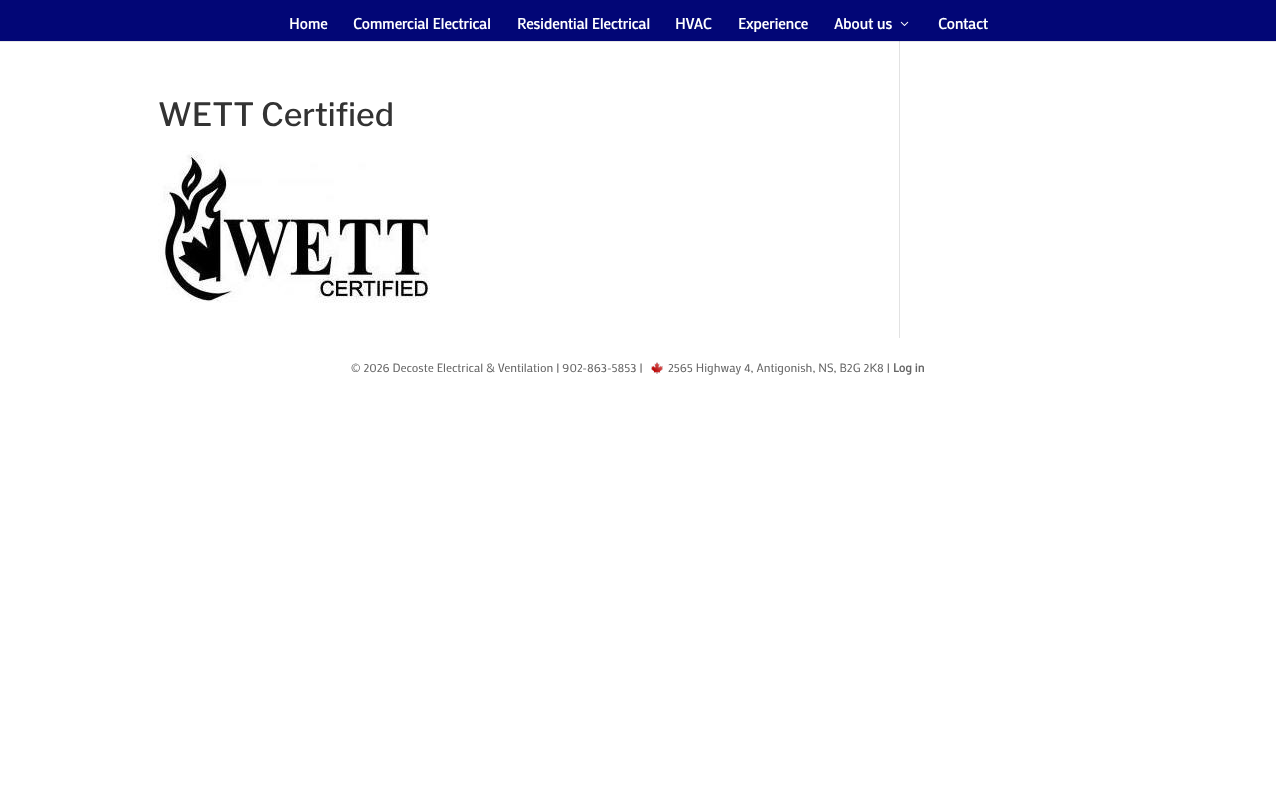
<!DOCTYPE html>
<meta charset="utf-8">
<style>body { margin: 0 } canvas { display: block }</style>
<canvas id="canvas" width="1276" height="800"></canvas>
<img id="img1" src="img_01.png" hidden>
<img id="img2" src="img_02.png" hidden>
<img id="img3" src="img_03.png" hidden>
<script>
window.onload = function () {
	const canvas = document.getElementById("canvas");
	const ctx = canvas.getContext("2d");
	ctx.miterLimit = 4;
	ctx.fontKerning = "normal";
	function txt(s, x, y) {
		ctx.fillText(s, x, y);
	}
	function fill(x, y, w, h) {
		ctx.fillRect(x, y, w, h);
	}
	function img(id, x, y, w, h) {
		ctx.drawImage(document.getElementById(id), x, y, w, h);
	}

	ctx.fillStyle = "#FFFFFF";
	fill(0, 0, 1276, 800);
	ctx.fillStyle = "#E6E6E6";
	fill(0, 41, 1276, 1);
	ctx.fillStyle = "#020676";
	fill(0, 0, 1276, 41);
	img("img1", 900, 21, 9, 5);
	img("img2", 158, 151, 272, 152);
	ctx.fillStyle = "#E2E2E2";
	fill(899, 41, 1, 297);
	ctx.fillStyle = "#CBCBCB";
	fill(899, 41, 1, 1);
	img("img3", 651, 362, 12, 12);
	ctx.font = "bold 15px Mako";
	ctx.fillStyle = "#FFFFFF";
	txt("Home", 289, 29);
	txt("Commercial Electrical", 353, 29);
	txt("Residential Electrical", 517, 29);
	txt("HVAC", 675, 29);
	txt("Experience", 738, 29);
	txt("About us", 834, 29);
	txt("Contact", 938, 29);
	ctx.font = "500 32px Libre Franklin";
	ctx.fillStyle = "#333333";
	txt("WETT Certified", 158, 126);
	ctx.font = "12px Mako";
	ctx.fillStyle = "#666666";
	txt("© 2026 Decoste Electrical & Ventilation | 902-863-5853 |", 351, 372);
	txt("2565 Highway 4, Antigonish, NS, B2G 2K8 |", 668, 372);
	ctx.font = "bold 12px Mako";
	txt("Log in", 893, 372);
};
</script>
